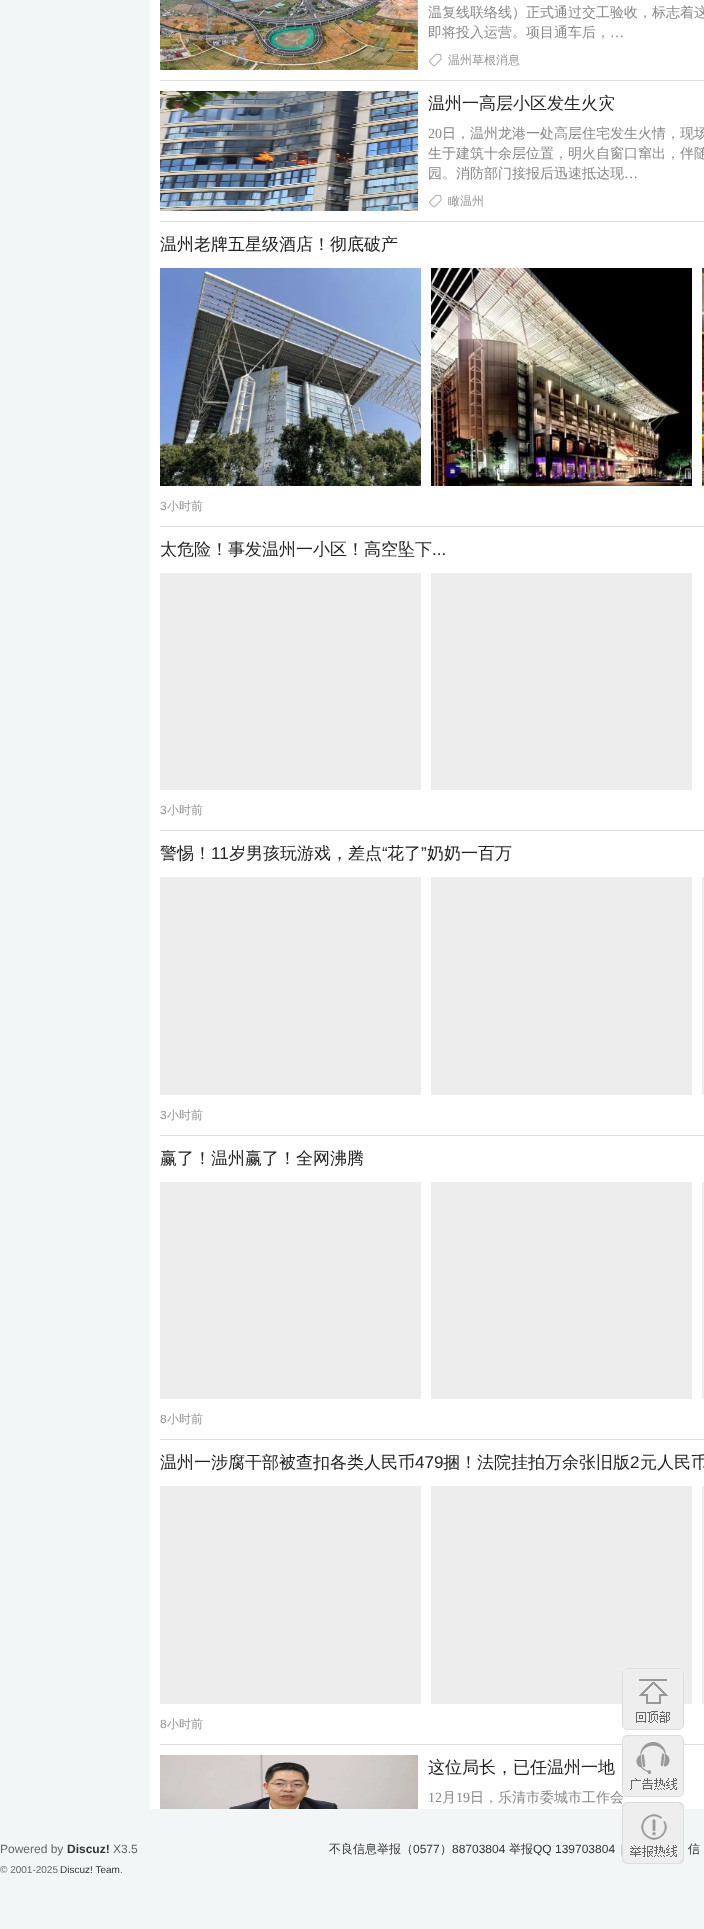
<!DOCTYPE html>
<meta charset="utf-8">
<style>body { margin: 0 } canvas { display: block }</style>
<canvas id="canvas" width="704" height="1929"></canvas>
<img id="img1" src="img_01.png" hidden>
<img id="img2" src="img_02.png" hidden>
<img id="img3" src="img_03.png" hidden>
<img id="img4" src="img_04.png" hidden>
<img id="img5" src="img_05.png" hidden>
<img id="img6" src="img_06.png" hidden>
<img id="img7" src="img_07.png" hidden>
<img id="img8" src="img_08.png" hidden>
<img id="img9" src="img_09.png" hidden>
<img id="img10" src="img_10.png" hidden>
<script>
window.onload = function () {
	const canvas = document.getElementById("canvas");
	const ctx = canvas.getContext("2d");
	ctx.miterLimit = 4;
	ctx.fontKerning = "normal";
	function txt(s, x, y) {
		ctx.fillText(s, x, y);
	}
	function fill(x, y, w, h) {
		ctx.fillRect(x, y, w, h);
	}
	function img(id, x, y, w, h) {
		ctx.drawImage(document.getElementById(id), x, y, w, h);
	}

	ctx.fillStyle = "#F3F6F7";
	fill(0, 0, 704, 1929);
	ctx.fillStyle = "#FFFFFF";
	fill(150, 0, 554, 1809);
	ctx.fillStyle = "#DDDDDD";
	fill(160, 80, 544, 1);
	img("img1", 160, 0, 258, 70);
	img("img2", 429, 53, 13, 14);
	fill(160, 221, 544, 1);
	img("img3", 160, 91, 258, 120);
	img("img2", 429, 194, 13, 14);
	fill(160, 526, 544, 1);
	img("img4", 160, 268, 261, 218);
	img("img5", 431, 268, 261, 218);
	img("img6", 702, 268, 2, 218);
	fill(160, 830, 544, 1);
	ctx.fillStyle = "#EDEDED";
	fill(160, 573, 261, 217);
	fill(431, 573, 261, 217);
	ctx.fillStyle = "#DDDDDD";
	fill(160, 1135, 544, 1);
	ctx.fillStyle = "#EDEDED";
	fill(160, 877, 261, 218);
	fill(431, 877, 261, 218);
	fill(702, 877, 2, 218);
	ctx.fillStyle = "#DDDDDD";
	fill(160, 1439, 544, 1);
	ctx.fillStyle = "#EDEDED";
	fill(160, 1182, 261, 217);
	fill(431, 1182, 261, 217);
	fill(702, 1182, 2, 217);
	ctx.fillStyle = "#DDDDDD";
	fill(160, 1744, 544, 1);
	ctx.fillStyle = "#EDEDED";
	fill(160, 1486, 261, 218);
	fill(431, 1486, 261, 218);
	fill(702, 1486, 2, 218);
	img("img7", 160, 1755, 258, 54);
	img("img8", 622, 1668, 62, 62);
	ctx.font = "500 14px WenQuanYi Zen Hei";
	ctx.fillStyle = "#888888";
	txt("温复线联络线）正式通过交工验收，标志着这", 428, 17);
	txt("即将投入运营。项目通车后，", 428, 37);
	ctx.font = "14px Liberation Serif";
	txt("…", 610, 37);
	ctx.font = "500 12px WenQuanYi Zen Hei";
	ctx.fillStyle = "#949494";
	txt("温州草根消息", 448, 64);
	ctx.font = "500 17px WenQuanYi Zen Hei";
	ctx.fillStyle = "#222222";
	txt("温州一高层小区发生火灾", 428, 109);
	ctx.font = "14px Liberation Serif";
	ctx.fillStyle = "#888888";
	txt("20", 428, 138);
	ctx.font = "500 14px WenQuanYi Zen Hei";
	txt("日，温州龙港一处高层住宅发生火情，现场", 442, 138);
	txt("生于建筑十余层位置，明火自窗口窜出，伴随", 428, 158);
	txt("园。消防部门接报后迅速抵达现", 428, 178);
	ctx.font = "14px Liberation Serif";
	txt("…", 624, 178);
	ctx.font = "500 12px WenQuanYi Zen Hei";
	ctx.fillStyle = "#949494";
	txt("瞰温州", 448, 205);
	ctx.font = "500 17px WenQuanYi Zen Hei";
	ctx.fillStyle = "#222222";
	txt("温州老牌五星级酒店！彻底破产", 160, 250);
	ctx.font = "12px Liberation Sans";
	ctx.fillStyle = "#949494";
	txt("3", 160, 510);
	ctx.font = "500 12px WenQuanYi Zen Hei";
	txt("小时前", 167, 510);
	ctx.font = "500 17px WenQuanYi Zen Hei";
	ctx.fillStyle = "#222222";
	txt("太危险！事发温州一小区！高空坠下", 160, 555);
	ctx.font = "17px Liberation Sans";
	txt("...", 432, 555);
	ctx.font = "12px Liberation Sans";
	ctx.fillStyle = "#949494";
	txt("3", 160, 814);
	ctx.font = "500 12px WenQuanYi Zen Hei";
	txt("小时前", 167, 814);
	ctx.font = "500 17px WenQuanYi Zen Hei";
	ctx.fillStyle = "#222222";
	txt("警惕！", 160, 859);
	ctx.font = "17px Liberation Sans";
	txt("11", 211, 859);
	ctx.font = "500 17px WenQuanYi Zen Hei";
	txt("岁男孩玩游戏，差点", 229, 859);
	ctx.font = "17px Liberation Sans";
	txt("“", 382, 859);
	ctx.font = "500 17px WenQuanYi Zen Hei";
	txt("花了", 387, 859);
	ctx.font = "17px Liberation Sans";
	txt("”", 421, 859);
	ctx.font = "500 17px WenQuanYi Zen Hei";
	txt("奶奶一百万", 427, 859);
	ctx.font = "12px Liberation Sans";
	ctx.fillStyle = "#949494";
	txt("3", 160, 1119);
	ctx.font = "500 12px WenQuanYi Zen Hei";
	txt("小时前", 167, 1119);
	ctx.font = "500 17px WenQuanYi Zen Hei";
	ctx.fillStyle = "#222222";
	txt("赢了！温州赢了！全网沸腾", 160, 1164);
	ctx.font = "12px Liberation Sans";
	ctx.fillStyle = "#949494";
	txt("8", 160, 1423);
	ctx.font = "500 12px WenQuanYi Zen Hei";
	txt("小时前", 167, 1423);
	ctx.font = "500 17px WenQuanYi Zen Hei";
	ctx.fillStyle = "#222222";
	txt("温州一涉腐干部被查扣各类人民币", 160, 1468);
	ctx.font = "17px Liberation Sans";
	txt("479", 415, 1468);
	ctx.font = "500 17px WenQuanYi Zen Hei";
	txt("捆！法院挂拍万余张旧版", 443, 1468);
	ctx.font = "17px Liberation Sans";
	txt("2", 630, 1468);
	ctx.font = "500 17px WenQuanYi Zen Hei";
	txt("元人民币", 640, 1468);
	ctx.font = "12px Liberation Sans";
	ctx.fillStyle = "#949494";
	txt("8", 160, 1728);
	ctx.font = "500 12px WenQuanYi Zen Hei";
	txt("小时前", 167, 1728);
	ctx.font = "500 17px WenQuanYi Zen Hei";
	ctx.fillStyle = "#222222";
	txt("这位局长，已任温州一地", 428, 1773);
	ctx.font = "14px Liberation Serif";
	ctx.fillStyle = "#888888";
	txt("12", 428, 1802);
	ctx.font = "500 14px WenQuanYi Zen Hei";
	txt("月", 442, 1802);
	ctx.font = "14px Liberation Serif";
	txt("19", 456, 1802);
	ctx.font = "500 14px WenQuanYi Zen Hei";
	txt("日，乐清市委城市工作会", 470, 1802);
	img("img9", 622, 1735, 62, 62);
	img("img10", 622, 1802, 62, 62);
	ctx.font = "12px Liberation Sans";
	ctx.fillStyle = "#666666";
	txt("Powered by", 0, 1853);
	ctx.font = "bold 12px Liberation Sans";
	ctx.fillStyle = "#333333";
	txt("Discuz!", 67, 1853);
	ctx.font = "12px Liberation Sans";
	ctx.fillStyle = "#666666";
	txt("X3.5", 113, 1853);
	ctx.font = "10px Liberation Sans";
	txt("© 2001-2025", 0, 1873);
	ctx.fillStyle = "#333333";
	txt("Discuz! Team", 60, 1873);
	ctx.fillStyle = "#666666";
	txt(".", 120, 1873);
	ctx.font = "500 12px WenQuanYi Zen Hei";
	ctx.fillStyle = "#333333";
	txt("不良信息举报（", 329, 1853);
	ctx.font = "12px Liberation Sans";
	txt("0577", 413, 1853);
	ctx.font = "500 12px WenQuanYi Zen Hei";
	txt("）", 440, 1853);
	ctx.font = "12px Liberation Sans";
	txt("88703804", 452, 1853);
	ctx.font = "500 12px WenQuanYi Zen Hei";
	txt("举报", 509, 1853);
	ctx.font = "12px Liberation Sans";
	txt("QQ 139703804", 533, 1853);
	ctx.fillStyle = "#CCCCCC";
	txt("|", 620, 1853);
	ctx.font = "500 12px WenQuanYi Zen Hei";
	ctx.fillStyle = "#333333";
	txt("信", 688, 1853);
};
</script>
